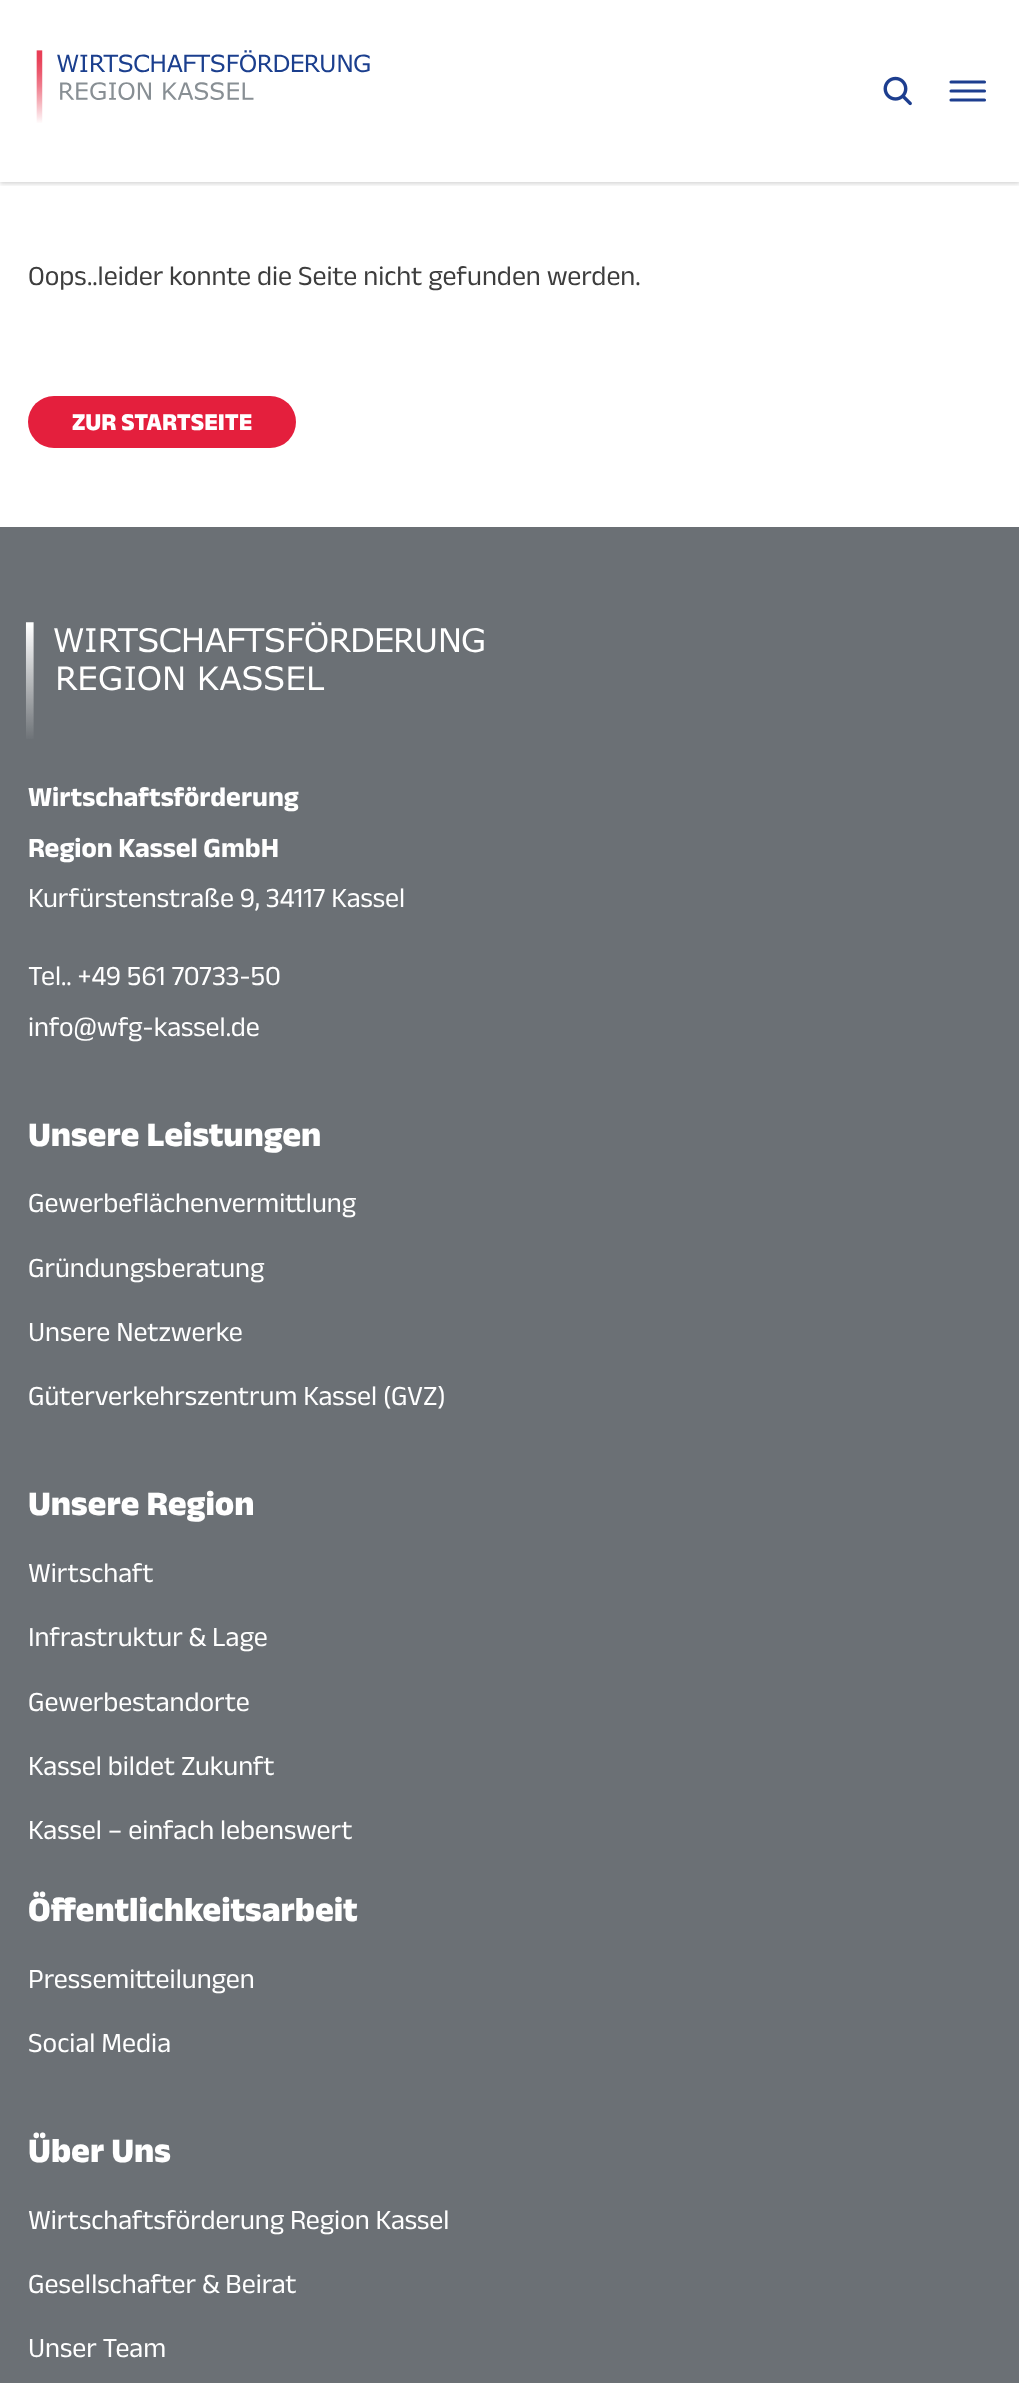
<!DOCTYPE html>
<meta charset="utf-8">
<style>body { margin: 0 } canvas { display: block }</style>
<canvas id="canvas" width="1019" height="2383"></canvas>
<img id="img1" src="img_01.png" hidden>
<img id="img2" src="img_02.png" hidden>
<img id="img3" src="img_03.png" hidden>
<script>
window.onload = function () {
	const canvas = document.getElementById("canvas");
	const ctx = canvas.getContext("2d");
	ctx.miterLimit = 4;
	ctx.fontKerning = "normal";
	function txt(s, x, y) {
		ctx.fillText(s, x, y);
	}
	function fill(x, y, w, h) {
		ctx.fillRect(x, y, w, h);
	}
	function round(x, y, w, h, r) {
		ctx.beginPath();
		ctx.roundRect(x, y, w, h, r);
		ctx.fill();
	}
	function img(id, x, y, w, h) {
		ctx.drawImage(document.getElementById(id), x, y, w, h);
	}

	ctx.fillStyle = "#FFFFFF";
	fill(0, 0, 1019, 2383);
	ctx.save();
	ctx.beginPath();
	ctx.rect(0, 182, 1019, 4);
	ctx.clip();
	ctx.fillStyle = "rgba(0, 0, 0, 0.16)";
	ctx.filter = "blur(2px)";
	ctx.beginPath();
	ctx.rect(0, 2, 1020, 182);
	ctx.fill();
	ctx.filter = "none";
	ctx.restore();
	img("img1", 36, 50, 334, 73);
	img("img2", 883, 76, 29, 30);
	ctx.beginPath();
	ctx.moveTo(951, 82);
	ctx.lineTo(984.5, 82);
	ctx.moveTo(951, 91);
	ctx.lineTo(984.5, 91);
	ctx.moveTo(951, 100);
	ctx.lineTo(984.5, 100);
	ctx.strokeStyle = "#1D3E8F";
	ctx.lineWidth = 3.1;
	ctx.lineCap = "round";
	ctx.stroke();
	ctx.fillStyle = "#E41F3D";
	round(28, 396, 268, 52, 26);
	ctx.fillStyle = "#6B7075";
	fill(0, 527, 1019, 1856);
	img("img3", 25, 622, 459, 117);
	ctx.font = "500 28px 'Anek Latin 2'";
	ctx.fillStyle = "#3D3D3D";
	txt("Oops..leider konnte die Seite nicht gefunden werden.", 28, 285);
	ctx.font = "800 24.5px Anek Latin";
	ctx.fillStyle = "#FFFFFF";
	txt("ZUR STARTSEITE", 72, 430);
	ctx.font = "500 28px Anek Latin";
	txt("Wirtschaftsförderung", 28, 806);
	txt("Region Kassel GmbH", 28, 857);
	ctx.font = "500 28px 'Anek Latin 2'";
	txt("Kurfürstenstraße 9, 34117 Kassel", 28, 907);
	txt("Tel.. +49 561 70733-50", 28, 985);
	txt("info@wfg-kassel.de", 28, 1036);
	ctx.font = "800 35px Anek Latin";
	txt("Unsere Leistungen", 28, 1146);
	ctx.font = "500 28px 'Anek Latin 2'";
	txt("Gewerbeflächenvermittlung", 28, 1212);
	txt("Gründungsberatung", 28, 1277);
	txt("Unsere Netzwerke", 28, 1341);
	txt("Güterverkehrszentrum Kassel (GVZ)", 28, 1405);
	ctx.font = "800 35px Anek Latin";
	txt("Unsere Region", 28, 1515);
	ctx.font = "500 28px 'Anek Latin 2'";
	txt("Wirtschaft", 28, 1582);
	txt("Infrastruktur & Lage", 28, 1646);
	txt("Gewerbestandorte", 28, 1711);
	txt("Kassel bildet Zukunft", 28, 1775);
	txt("Kassel – einfach lebenswert", 28, 1839);
	ctx.font = "800 35px Anek Latin";
	txt("Öffentlichkeitsarbeit", 28, 1921);
	ctx.font = "500 28px 'Anek Latin 2'";
	txt("Pressemitteilungen", 28, 1988);
	txt("Social Media", 28, 2052);
	ctx.font = "800 35px Anek Latin";
	txt("Über Uns", 28, 2162);
	ctx.font = "500 28px 'Anek Latin 2'";
	txt("Wirtschaftsförderung Region Kassel", 28, 2229);
	txt("Gesellschafter & Beirat", 28, 2293);
	txt("Unser Team", 28, 2357);
};
</script>
